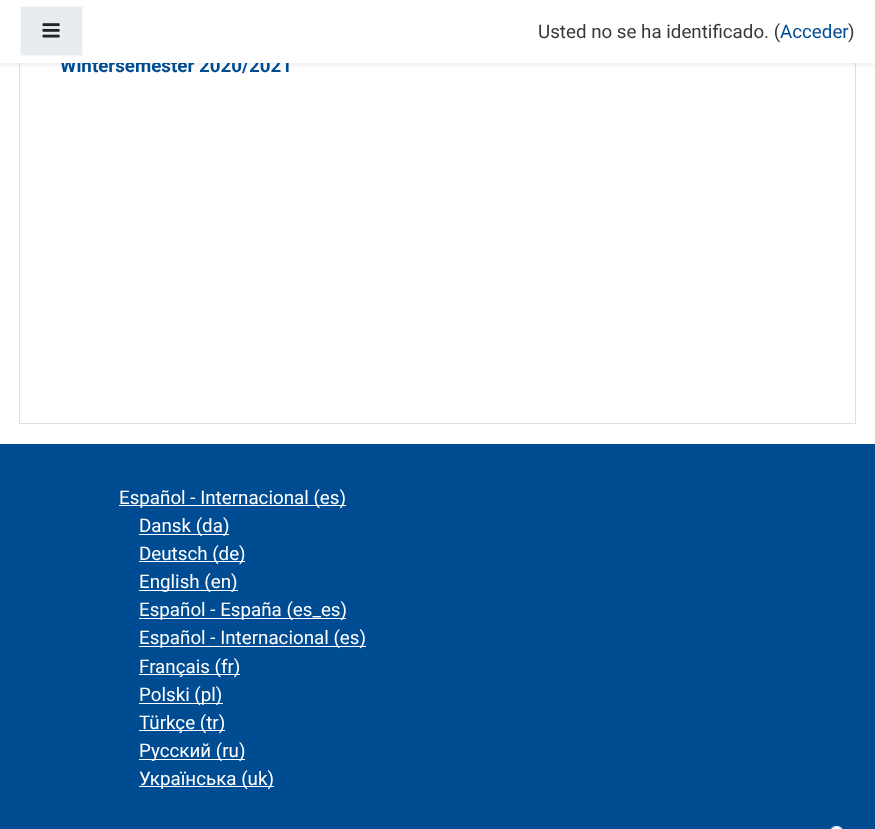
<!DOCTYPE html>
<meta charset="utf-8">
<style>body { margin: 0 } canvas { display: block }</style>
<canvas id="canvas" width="875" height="829"></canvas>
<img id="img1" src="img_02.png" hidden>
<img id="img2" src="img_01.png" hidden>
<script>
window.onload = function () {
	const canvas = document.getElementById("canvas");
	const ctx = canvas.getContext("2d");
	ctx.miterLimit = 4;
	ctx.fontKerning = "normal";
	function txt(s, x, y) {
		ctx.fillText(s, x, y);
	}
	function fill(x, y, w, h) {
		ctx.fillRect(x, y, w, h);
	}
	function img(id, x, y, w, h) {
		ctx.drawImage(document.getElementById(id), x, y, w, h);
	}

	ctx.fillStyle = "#FFFFFF";
	fill(0, 0, 875, 829);
	ctx.strokeStyle = "#DFDFDF";
	ctx.strokeRect(19.5, -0.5, 836, 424);
	ctx.fillStyle = "rgba(0, 0, 0, 0.08)";
	ctx.filter = "blur(2.5px)";
	ctx.beginPath();
	ctx.rect(0, 3, 875, 62);
	ctx.fill();
	ctx.filter = "none";
	ctx.fillStyle = "#004C93";
	fill(0, 444, 875, 385);
	ctx.fillStyle = "#FFFFFF";
	fill(119, 505, 227, 1);
	fill(139, 534, 90, 1);
	fill(139, 561, 106, 1);
	fill(139, 590, 99, 1);
	fill(139, 618, 207, 1);
	fill(139, 646, 227, 1);
	fill(139, 674, 101, 1);
	fill(139, 703, 84, 1);
	fill(139, 730, 86, 1);
	fill(139, 759, 106, 1);
	fill(139, 786, 135, 1);
	img("img1", 830, 826, 13, 3);
	ctx.font = "bold 18.75px Roboto";
	ctx.fillStyle = "#004C93";
	txt("Wintersemester 2020/2021", 60, 72);
	ctx.fillStyle = "#FFFFFF";
	fill(0, 0, 875, 63);
	ctx.font = "18.75px Roboto";
	ctx.fillStyle = "#004C93";
	txt("Acceder", 780, 38);
	ctx.fillStyle = "#373A3C";
	txt(")", 848, 38);
	txt("Usted no se ha identificado. (", 538, 38);
	ctx.fillStyle = "#E9ECEF";
	ctx.beginPath();
	ctx.rect(20.5, 6.5, 62, 49);
	ctx.fill();
	ctx.strokeStyle = "#F8F9FA";
	ctx.stroke();
	img("img2", 42, 23, 18, 15);
	ctx.fillStyle = "#FFFFFF";
	txt("Español - Internacional (es)", 119, 504);
	txt("Dansk (da)", 139, 532);
	txt("Deutsch (de)", 139, 560);
	txt("English (en)", 139, 588);
	txt("Español - España (es_es)", 139, 616);
	txt("Español - Internacional (es)", 139, 644);
	txt("Français (fr)", 139, 673);
	txt("Polski (pl)", 139, 701);
	txt("Türkçe (tr)", 139, 729);
	txt("Русский (ru)", 139, 757);
	txt("Українська (uk)", 139, 785);
};
</script>
